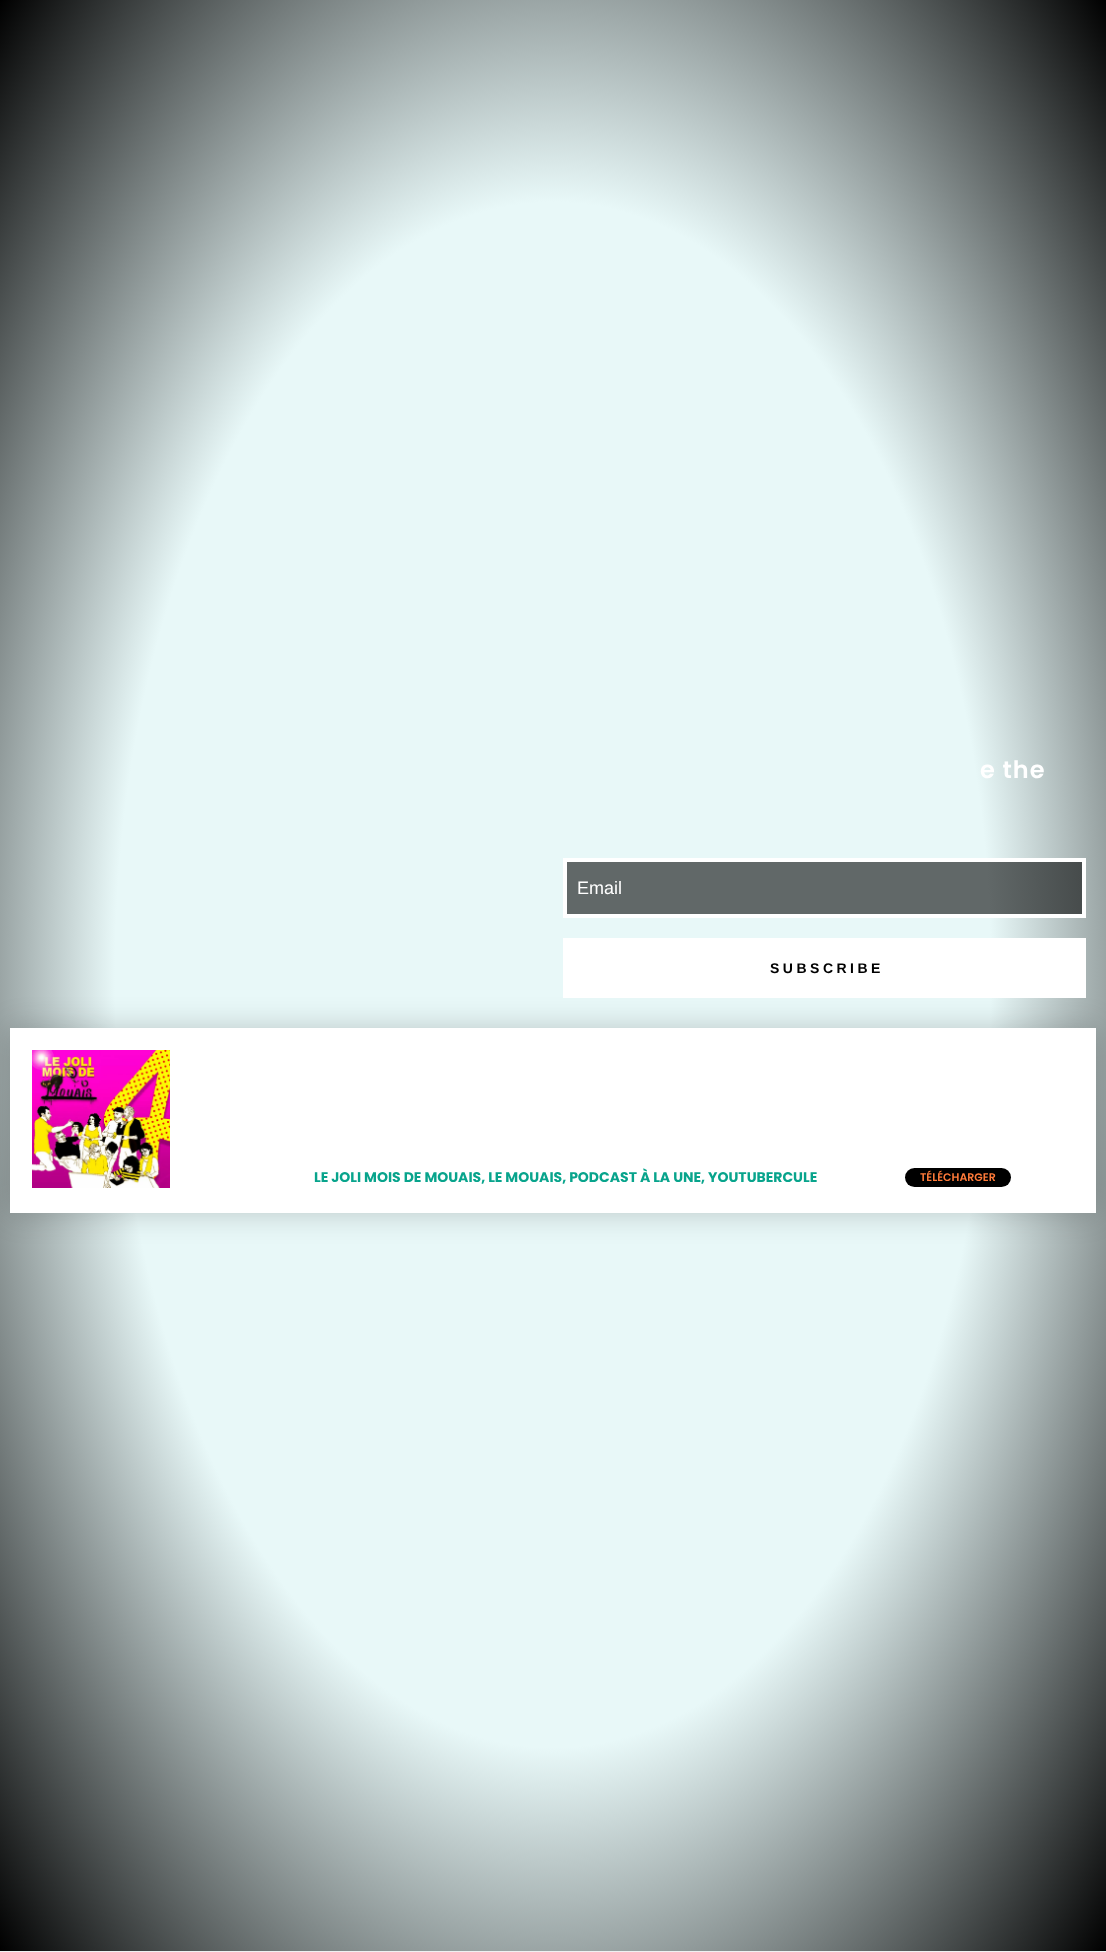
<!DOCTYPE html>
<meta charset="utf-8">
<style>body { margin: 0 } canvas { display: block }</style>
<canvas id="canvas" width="1106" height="1952"></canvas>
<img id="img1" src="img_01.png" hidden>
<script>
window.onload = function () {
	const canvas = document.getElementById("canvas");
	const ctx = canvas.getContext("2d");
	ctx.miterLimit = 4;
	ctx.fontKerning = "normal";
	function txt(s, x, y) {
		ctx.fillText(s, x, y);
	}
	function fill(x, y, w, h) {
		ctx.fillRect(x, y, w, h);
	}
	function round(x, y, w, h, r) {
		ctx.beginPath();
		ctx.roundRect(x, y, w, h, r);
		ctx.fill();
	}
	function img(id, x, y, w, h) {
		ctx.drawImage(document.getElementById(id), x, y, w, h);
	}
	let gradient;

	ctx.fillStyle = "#EEF1F1";
	fill(0, 0, 1106, 1952);
	gradient = ctx.createRadialGradient(553, 552.5, 0, 553, 552.5, 782);
	gradient.addColorStop(0.56, "#E8F8F8");
	gradient.addColorStop(1, "#000000");
	ctx.fillStyle = gradient;
	ctx.beginPath();
	ctx.rect(0, 0, 1106, 1951);
	ctx.save();
	ctx.clip();
	ctx.scale(1, 1380 / 782);
	ctx.fillRect(0, 0, 1106, 1107);
	ctx.restore();
	gradient = ctx.createRadialGradient(553, 552.5, 0, 553, 552.5, 782);
	gradient.addColorStop(0.56, "#616868");
	gradient.addColorStop(1, "#000000");
	ctx.fillStyle = gradient;
	ctx.beginPath();
	ctx.rect(567, 862, 515, 52);
	ctx.save();
	ctx.clip();
	ctx.scale(1, 1380 / 782);
	ctx.fillRect(0, 0, 1106, 1107);
	ctx.restore();
	ctx.strokeStyle = "#FFFFFF";
	ctx.lineWidth = 4;
	ctx.strokeRect(565, 860, 519, 56);
	ctx.fillStyle = "rgba(0, 0, 0, 0.2)";
	ctx.filter = "blur(15px)";
	ctx.beginPath();
	ctx.rect(10, 1028, 1086, 185);
	ctx.fill();
	ctx.filter = "none";
	ctx.fillStyle = "#FFFFFF";
	fill(563, 938, 523, 60);
	fill(10, 1028, 1086, 185);
	img("img1", 32, 1050, 138, 138);
	ctx.fillStyle = "#000000";
	round(905, 1168, 106, 19, 9.5);
	ctx.letterSpacing = "1px";
	ctx.font = "600 24px Poppins";
	ctx.fillStyle = "#FFFFFF";
	txt("e the", 980, 778);
	ctx.letterSpacing = "0px";
	ctx.font = "18px Liberation Sans";
	txt("Email", 577, 894);
	ctx.letterSpacing = "3.5px";
	ctx.font = "bold 14px Liberation Sans";
	ctx.fillStyle = "#000000";
	txt("SUBSCRIBE", 770, 973);
	ctx.letterSpacing = "0px";
	ctx.font = "bold 14px Poppins";
	ctx.fillStyle = "#08A48C";
	txt("LE JOLI MOIS DE MOUAIS, LE MOUAIS, PODCAST À LA UNE, YOUTUBERCULE", 314, 1182);
	ctx.font = "600 11px Poppins";
	ctx.fillStyle = "#FF7A39";
	txt("TÉLÉCHARGER", 920, 1181);
};
</script>
